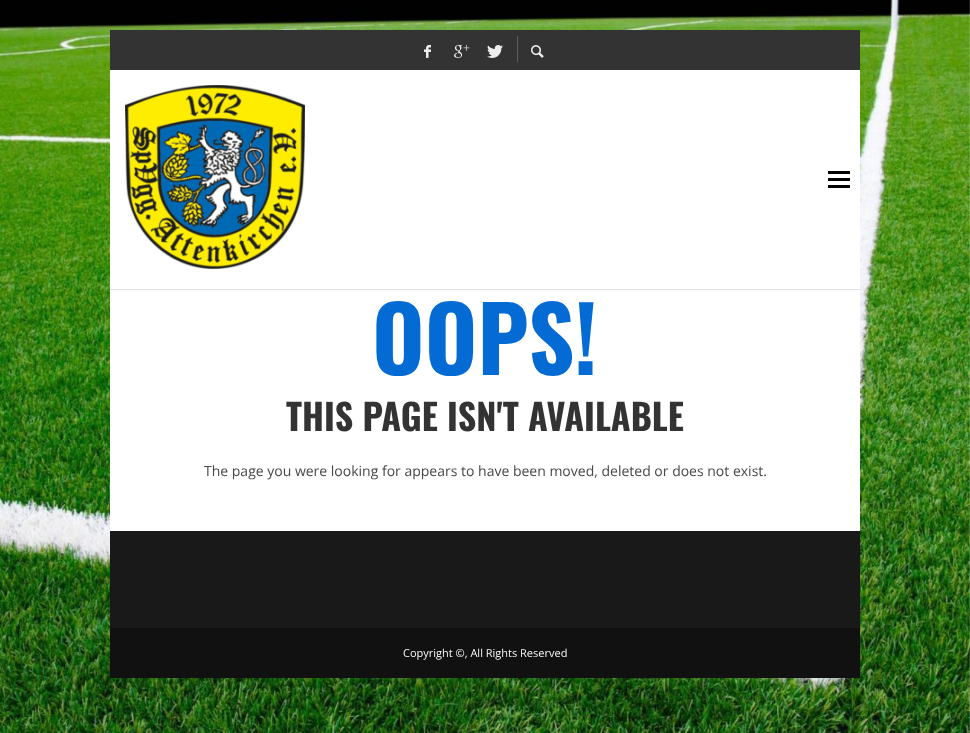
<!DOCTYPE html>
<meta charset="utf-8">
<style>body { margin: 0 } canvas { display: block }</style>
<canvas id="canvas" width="970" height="733"></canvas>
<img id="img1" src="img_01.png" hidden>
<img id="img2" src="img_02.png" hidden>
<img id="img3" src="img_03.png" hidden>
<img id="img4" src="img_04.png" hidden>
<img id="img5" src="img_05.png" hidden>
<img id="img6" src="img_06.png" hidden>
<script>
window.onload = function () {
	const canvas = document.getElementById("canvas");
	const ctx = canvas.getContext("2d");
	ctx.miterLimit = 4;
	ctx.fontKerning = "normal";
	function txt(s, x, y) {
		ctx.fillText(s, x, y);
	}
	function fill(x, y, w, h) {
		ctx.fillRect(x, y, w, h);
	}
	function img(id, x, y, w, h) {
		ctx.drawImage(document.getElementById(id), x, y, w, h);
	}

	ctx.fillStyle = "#FFFFFF";
	fill(0, 0, 970, 733);
	img("img1", 0, 0, 970, 733);
	fill(110, 70, 750, 461);
	ctx.fillStyle = "#E1E1E1";
	fill(110, 289, 750, 1);
	ctx.fillStyle = "#333333";
	fill(110, 30, 750, 40);
	img("img2", 424, 44, 7, 14);
	img("img3", 454, 44, 16, 14);
	img("img4", 487, 45, 16, 13);
	ctx.fillStyle = "#5E5E5E";
	fill(517, 36, 1, 26);
	img("img5", 531, 45, 13, 13);
	img("img6", 125, 85, 180, 184);
	ctx.fillStyle = "#000000";
	fill(828, 178, 22, 3);
	fill(828, 171, 22, 3);
	fill(828, 185, 22, 3);
	ctx.fillStyle = "#191919";
	fill(110, 531, 750, 97);
	ctx.fillStyle = "#111111";
	fill(110, 628, 750, 50);
	ctx.font = "bold 90px Oswald";
	ctx.fillStyle = "#046AD4";
	txt("OOPS!", 372, 375);
	ctx.font = "bold 36px Oswald";
	ctx.fillStyle = "#333333";
	txt("THIS PAGE ISN'T AVAILABLE", 286, 431);
	ctx.font = "14px Open Sans";
	ctx.fillStyle = "#474747";
	txt("The page you were looking for appears to have been moved, deleted or does not exist.", 204, 476);
	ctx.font = "11px Open Sans";
	ctx.fillStyle = "#F7F7F7";
	txt("Copyright ©, All Rights Reserved", 403, 657);
};
</script>
